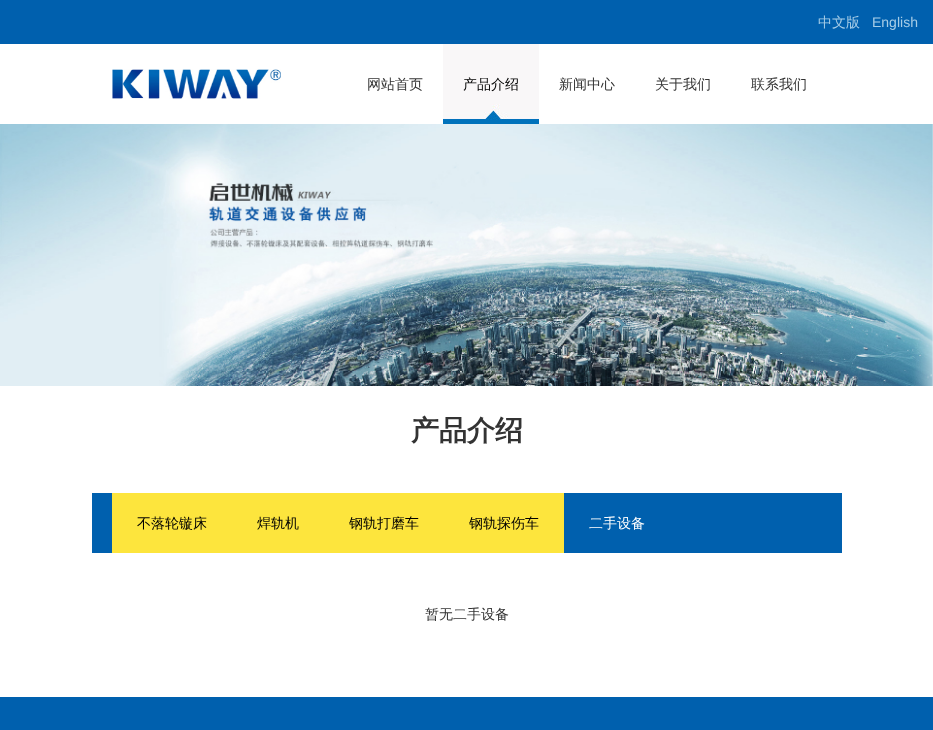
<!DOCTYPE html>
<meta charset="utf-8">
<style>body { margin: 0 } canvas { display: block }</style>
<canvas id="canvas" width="933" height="730"></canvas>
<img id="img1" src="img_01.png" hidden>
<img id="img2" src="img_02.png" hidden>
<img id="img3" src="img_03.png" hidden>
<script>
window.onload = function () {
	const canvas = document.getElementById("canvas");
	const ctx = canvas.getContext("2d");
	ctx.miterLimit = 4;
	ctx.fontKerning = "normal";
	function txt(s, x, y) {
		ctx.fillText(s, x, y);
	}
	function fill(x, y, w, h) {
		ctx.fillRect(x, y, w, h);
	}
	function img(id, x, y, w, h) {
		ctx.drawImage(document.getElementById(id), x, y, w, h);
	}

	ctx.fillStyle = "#FFFFFF";
	fill(0, 0, 933, 730);
	ctx.fillStyle = "#0060AE";
	fill(0, 0, 933, 44);
	img("img1", 112, 69, 169, 30);
	img("img2", 443, 44, 96, 80);
	img("img3", 0, 124, 933, 262);
	fill(92, 493, 750, 60);
	ctx.fillStyle = "#FDE53D";
	fill(112, 493, 452, 60);
	ctx.fillStyle = "#0060AE";
	fill(0, 697, 933, 33);
	ctx.font = "500 14px WenQuanYi Zen Hei";
	ctx.fillStyle = "#A6CDE7";
	txt("中文版", 818, 27);
	ctx.font = "14px Liberation Sans";
	txt("English", 872, 27);
	ctx.font = "500 14px WenQuanYi Zen Hei";
	ctx.fillStyle = "#333333";
	txt("网站首页", 367, 89);
	ctx.fillStyle = "#000000";
	txt("产品介绍", 463, 89);
	ctx.fillStyle = "#333333";
	txt("新闻中心", 559, 89);
	txt("关于我们", 655, 89);
	txt("联系我们", 751, 89);
	ctx.font = "bold 28px WenQuanYi Zen Hei";
	txt("产品介绍", 411, 440);
	ctx.font = "500 14px WenQuanYi Zen Hei";
	ctx.fillStyle = "#000000";
	txt("不落轮镟床", 137, 528);
	txt("焊轨机", 257, 528);
	txt("钢轨打磨车", 349, 528);
	txt("钢轨探伤车", 469, 528);
	ctx.fillStyle = "#FFFFFF";
	txt("二手设备", 589, 528);
	ctx.fillStyle = "#333333";
	txt("暂无二手设备", 425, 619);
};
</script>
